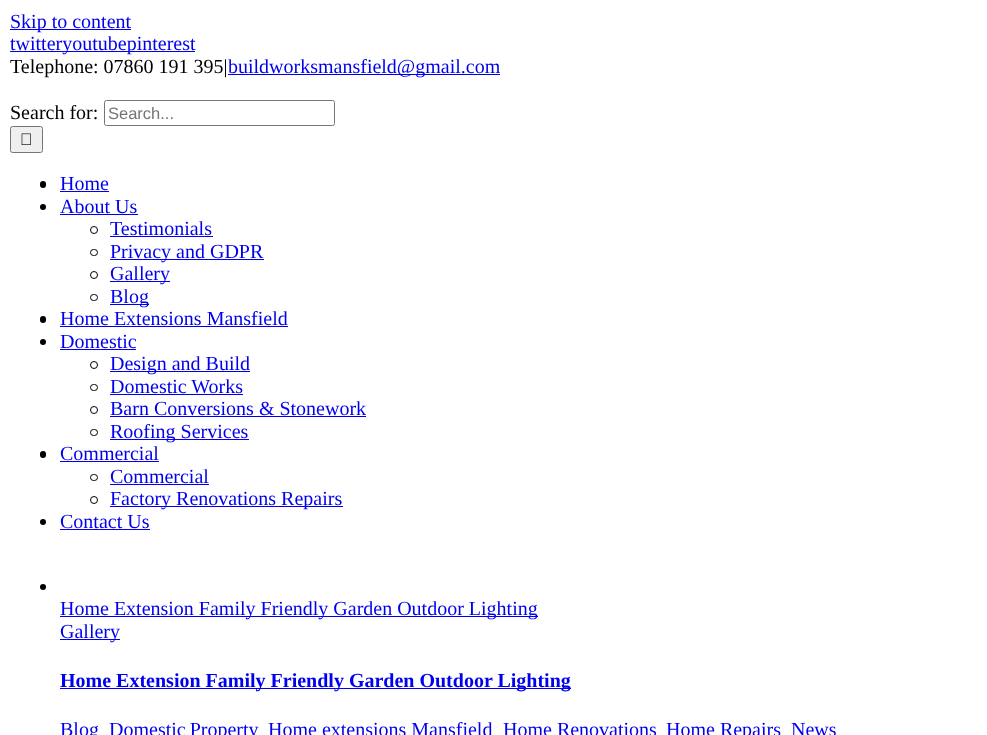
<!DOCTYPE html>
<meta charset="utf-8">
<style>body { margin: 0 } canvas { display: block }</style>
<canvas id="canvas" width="987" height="735"></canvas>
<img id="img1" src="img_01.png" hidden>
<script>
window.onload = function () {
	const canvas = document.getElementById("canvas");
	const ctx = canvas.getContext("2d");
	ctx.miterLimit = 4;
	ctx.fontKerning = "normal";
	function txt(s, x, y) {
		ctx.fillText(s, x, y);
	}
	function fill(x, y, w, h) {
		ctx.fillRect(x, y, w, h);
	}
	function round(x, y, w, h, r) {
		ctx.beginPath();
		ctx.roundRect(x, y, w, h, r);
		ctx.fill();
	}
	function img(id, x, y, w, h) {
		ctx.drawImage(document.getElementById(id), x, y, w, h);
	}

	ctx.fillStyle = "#FFFFFF";
	fill(0, 0, 987, 735);
	ctx.fillStyle = "#0000EE";
	fill(10, 29, 121, 1);
	fill(10, 51, 185, 1);
	fill(228, 74, 272, 1);
	ctx.beginPath();
	ctx.roundRect(104.5, 100.5, 230, 25, 2);
	ctx.strokeStyle = "#767676";
	ctx.stroke();
	ctx.fillStyle = "#EFEFEF";
	ctx.beginPath();
	ctx.roundRect(10.5, 126.5, 32, 26, 2);
	ctx.fill();
	ctx.stroke();
	img("img1", 21, 133, 10, 12);
	ctx.fillStyle = "#000000";
	round(40, 181, 6, 7, 3);
	ctx.fillStyle = "#0000EE";
	fill(60, 191, 49, 1);
	ctx.fillStyle = "#000000";
	ctx.beginPath();
	ctx.arc(43, 207, 3, 0, Math.PI * 2);
	ctx.fill();
	ctx.fillStyle = "#0000EE";
	fill(60, 214, 78, 1);
	ctx.beginPath();
	ctx.arc(94, 230, 3.5, 0, Math.PI * 2);
	ctx.strokeStyle = "#000000";
	ctx.stroke();
	fill(110, 236, 103, 1);
	ctx.beginPath();
	ctx.roundRect(90.5, 249.5, 7, 6, 3);
	ctx.stroke();
	fill(110, 259, 154, 1);
	ctx.beginPath();
	ctx.arc(94, 275, 3.5, 0, Math.PI * 2);
	ctx.stroke();
	fill(110, 281, 60, 1);
	ctx.beginPath();
	ctx.roundRect(90.5, 294.5, 7, 6, 3);
	ctx.stroke();
	fill(110, 304, 39, 1);
	ctx.fillStyle = "#000000";
	round(40, 316, 6, 7, 3);
	ctx.fillStyle = "#0000EE";
	fill(60, 326, 228, 1);
	ctx.fillStyle = "#000000";
	ctx.beginPath();
	ctx.arc(43, 342, 3, 0, Math.PI * 2);
	ctx.fill();
	ctx.fillStyle = "#0000EE";
	fill(60, 349, 76, 1);
	ctx.beginPath();
	ctx.arc(94, 365, 3.5, 0, Math.PI * 2);
	ctx.stroke();
	fill(110, 371, 140, 1);
	ctx.beginPath();
	ctx.roundRect(90.5, 384.5, 7, 6, 3);
	ctx.stroke();
	fill(110, 394, 133, 1);
	ctx.beginPath();
	ctx.arc(94, 410, 3.5, 0, Math.PI * 2);
	ctx.stroke();
	fill(110, 416, 256, 1);
	ctx.beginPath();
	ctx.roundRect(90.5, 429.5, 7, 6, 3);
	ctx.stroke();
	fill(110, 439, 139, 1);
	ctx.fillStyle = "#000000";
	round(40, 451, 6, 7, 3);
	ctx.fillStyle = "#0000EE";
	fill(60, 461, 99, 1);
	ctx.beginPath();
	ctx.roundRect(90.5, 474.5, 7, 6, 3);
	ctx.stroke();
	fill(110, 484, 99, 1);
	ctx.beginPath();
	ctx.arc(94, 500, 3.5, 0, Math.PI * 2);
	ctx.stroke();
	fill(110, 506, 233, 1);
	ctx.fillStyle = "#000000";
	ctx.beginPath();
	ctx.arc(43, 522, 3, 0, Math.PI * 2);
	ctx.fill();
	ctx.fillStyle = "#0000EE";
	fill(60, 529, 90, 1);
	ctx.fillStyle = "#000000";
	ctx.beginPath();
	ctx.arc(43, 587, 3, 0, Math.PI * 2);
	ctx.fill();
	ctx.fillStyle = "#0000EE";
	fill(60, 616, 478, 1);
	fill(60, 639, 60, 1);
	fill(60, 688, 511, 1);
	ctx.font = "20px Liberation Serif";
	txt("Skip to content", 10, 28);
	txt("twitteryoutubepinterest", 10, 50);
	ctx.fillStyle = "#000000";
	txt("Telephone: 07860 191 395|", 10, 73);
	ctx.fillStyle = "#0000EE";
	txt("buildworksmansfield@gmail.com", 228, 73);
	ctx.fillStyle = "#000000";
	txt("Search for:", 10, 119);
	ctx.font = "16.5px Liberation Sans";
	ctx.fillStyle = "#757575";
	txt("Search...", 108, 119);
	ctx.font = "20px Liberation Serif";
	ctx.fillStyle = "#0000EE";
	txt("Home", 60, 190);
	txt("About Us", 60, 213);
	txt("Testimonials", 110, 235);
	txt("Privacy and GDPR", 110, 258);
	txt("Gallery", 110, 280);
	txt("Blog", 110, 303);
	txt("Home Extensions Mansfield", 60, 325);
	txt("Domestic", 60, 348);
	txt("Design and Build", 110, 370);
	txt("Domestic Works", 110, 393);
	txt("Barn Conversions & Stonework", 110, 415);
	txt("Roofing Services", 110, 438);
	txt("Commercial", 60, 460);
	txt("Commercial", 110, 483);
	txt("Factory Renovations Repairs", 110, 505);
	txt("Contact Us", 60, 528);
	txt("Home Extension Family Friendly Garden Outdoor Lighting", 60, 615);
	txt("Gallery", 60, 638);
	ctx.font = "bold 20px Liberation Serif";
	txt("Home Extension Family Friendly Garden Outdoor Lighting", 60, 687);
	ctx.font = "20px Liberation Serif";
	txt("Blog", 60, 736);
	ctx.wordSpacing = "-1px";
	txt("Domestic Property", 109, 736);
	ctx.wordSpacing = "0px";
	txt("Home extensions Mansfield", 268, 736);
	txt("Home Renovations", 503, 736);
	txt("Home Repairs", 666, 736);
	txt("News", 791, 736);
};
</script>
